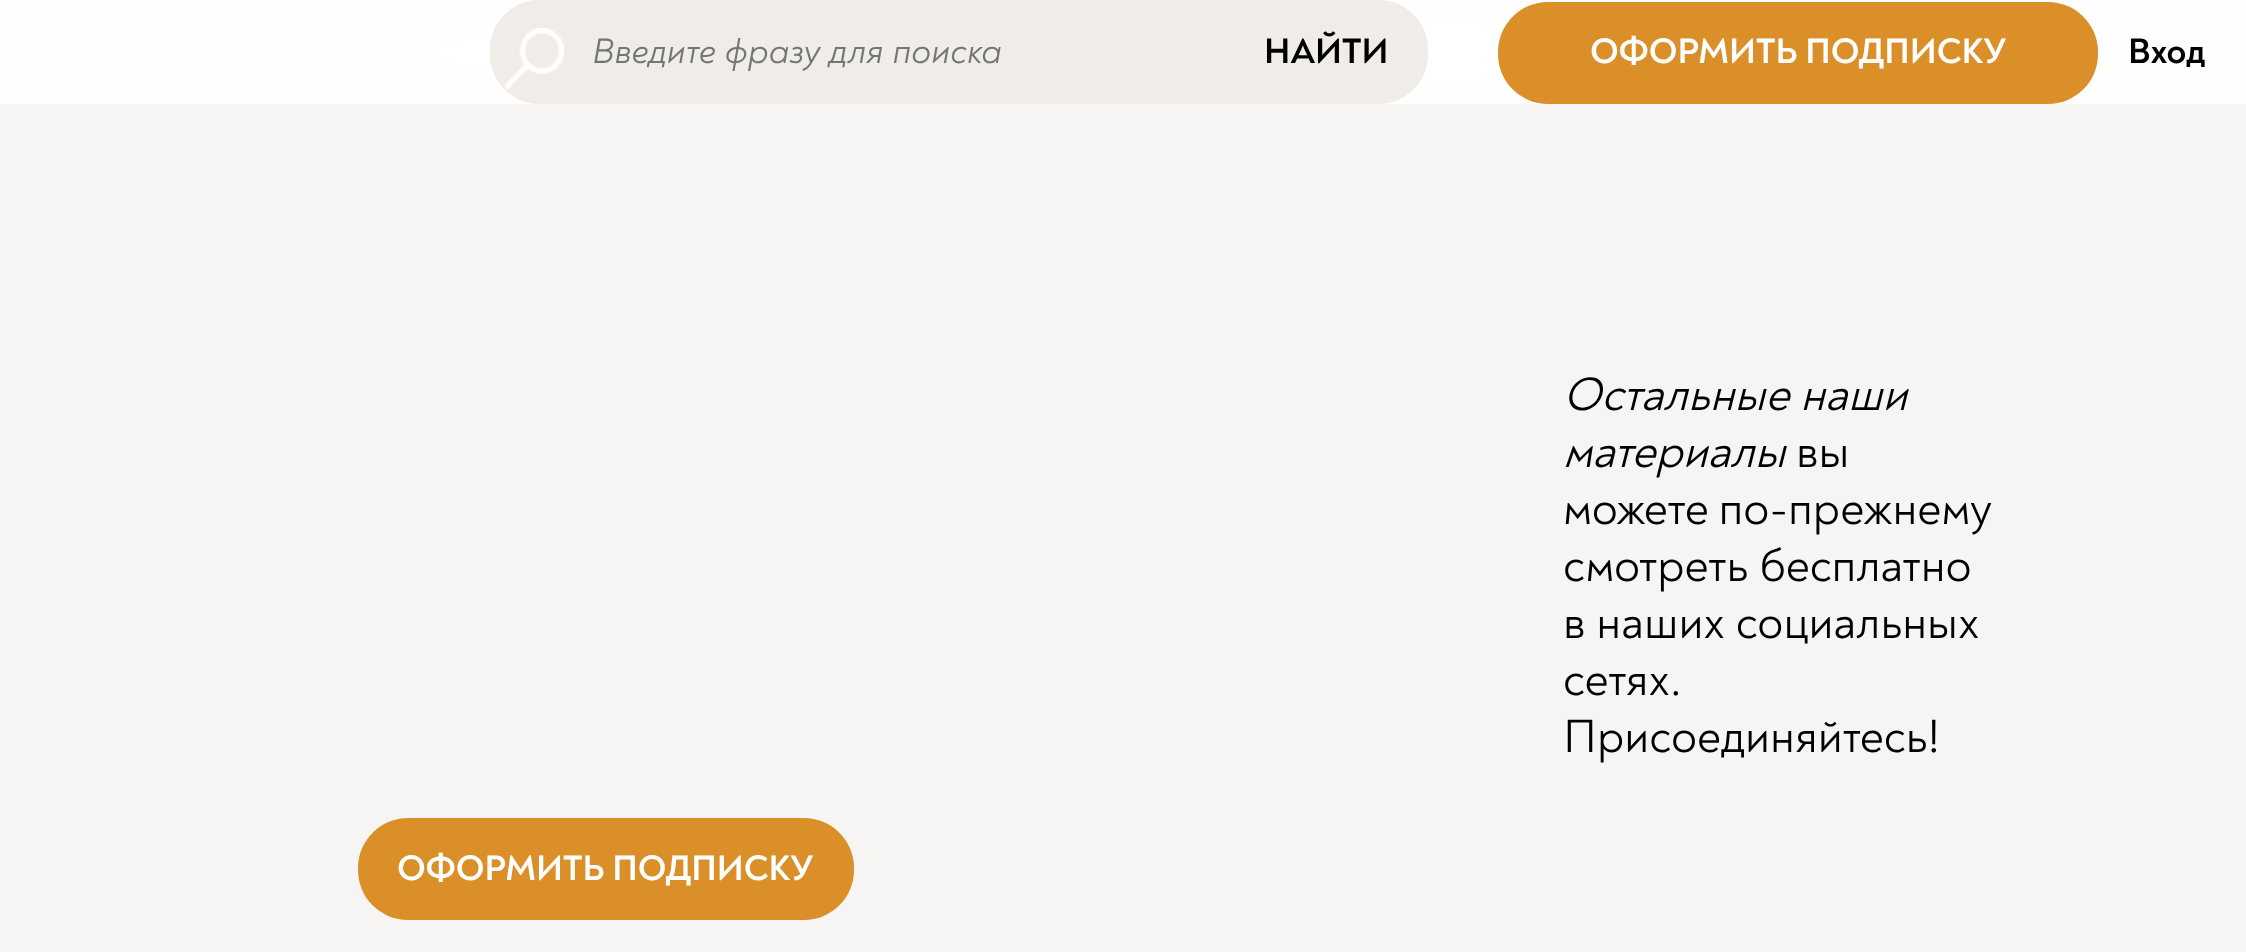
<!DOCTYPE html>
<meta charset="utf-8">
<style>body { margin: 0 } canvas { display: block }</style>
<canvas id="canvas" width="2246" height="952"></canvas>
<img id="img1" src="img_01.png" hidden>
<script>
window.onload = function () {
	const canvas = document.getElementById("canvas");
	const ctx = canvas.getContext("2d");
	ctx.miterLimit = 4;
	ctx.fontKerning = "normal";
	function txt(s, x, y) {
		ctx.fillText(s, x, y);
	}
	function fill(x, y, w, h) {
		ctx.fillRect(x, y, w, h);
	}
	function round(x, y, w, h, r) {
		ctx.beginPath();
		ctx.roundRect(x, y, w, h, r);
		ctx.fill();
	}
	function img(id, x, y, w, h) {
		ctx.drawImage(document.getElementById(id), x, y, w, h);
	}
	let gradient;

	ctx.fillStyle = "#F7F5F3";
	fill(0, 0, 2246, 952);
	gradient = ctx.createRadialGradient(1123, 1115.89, 0, 1123, 1115.89, 1588);
	gradient.addColorStop(0, "#FFFFFF");
	gradient.addColorStop(1, "#FEFEFE");
	ctx.fillStyle = gradient;
	ctx.beginPath();
	ctx.rect(0, 0, 2246, 104);
	ctx.save();
	ctx.clip();
	ctx.scale(1, 74 / 1588);
	ctx.fillRect(0, 0, 2246, 20430);
	ctx.restore();
	ctx.fillStyle = "#F0ECE8";
	round(490, 0, 938, 104, 50);
	img("img1", 502, 28, 62, 63);
	ctx.beginPath();
	ctx.roundRect(491, 1, 936, 102, 49);
	ctx.strokeStyle = "#F0ECE8";
	ctx.lineWidth = 2;
	ctx.stroke();
	ctx.fillStyle = "#DB8F29";
	round(1498, 2, 600, 102, 50);
	round(358, 818, 496, 102, 50);
	ctx.font = "italic 36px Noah";
	ctx.fillStyle = "#757575";
	txt("Введите фразу для поиска", 592, 63);
	ctx.font = "bold 36px Noah";
	ctx.fillStyle = "#000000";
	txt("НАЙТИ", 1264, 63);
	ctx.fillStyle = "#FFFFFF";
	txt("ОФОРМИТЬ ПОДПИСКУ", 1590, 63);
	ctx.fillStyle = "#000000";
	txt("Вход", 2128, 63);
	ctx.font = "italic 47.5px 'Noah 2'";
	txt("Остальные наши", 1563, 410);
	txt("материалы", 1563, 467);
	ctx.font = "47.5px Noah";
	txt("вы", 1796, 467);
	ctx.wordSpacing = "-1px";
	txt("можете по-прежнему", 1563, 524);
	ctx.wordSpacing = "0px";
	txt("смотреть бесплатно", 1563, 581);
	txt("в наших социальных", 1563, 638);
	txt("сетях.", 1563, 695);
	txt("Присоединяйтесь!", 1563, 752);
	ctx.font = "bold 36px Noah";
	ctx.fillStyle = "#FFFFFF";
	txt("ОФОРМИТЬ ПОДПИСКУ", 397, 880);
};
</script>
